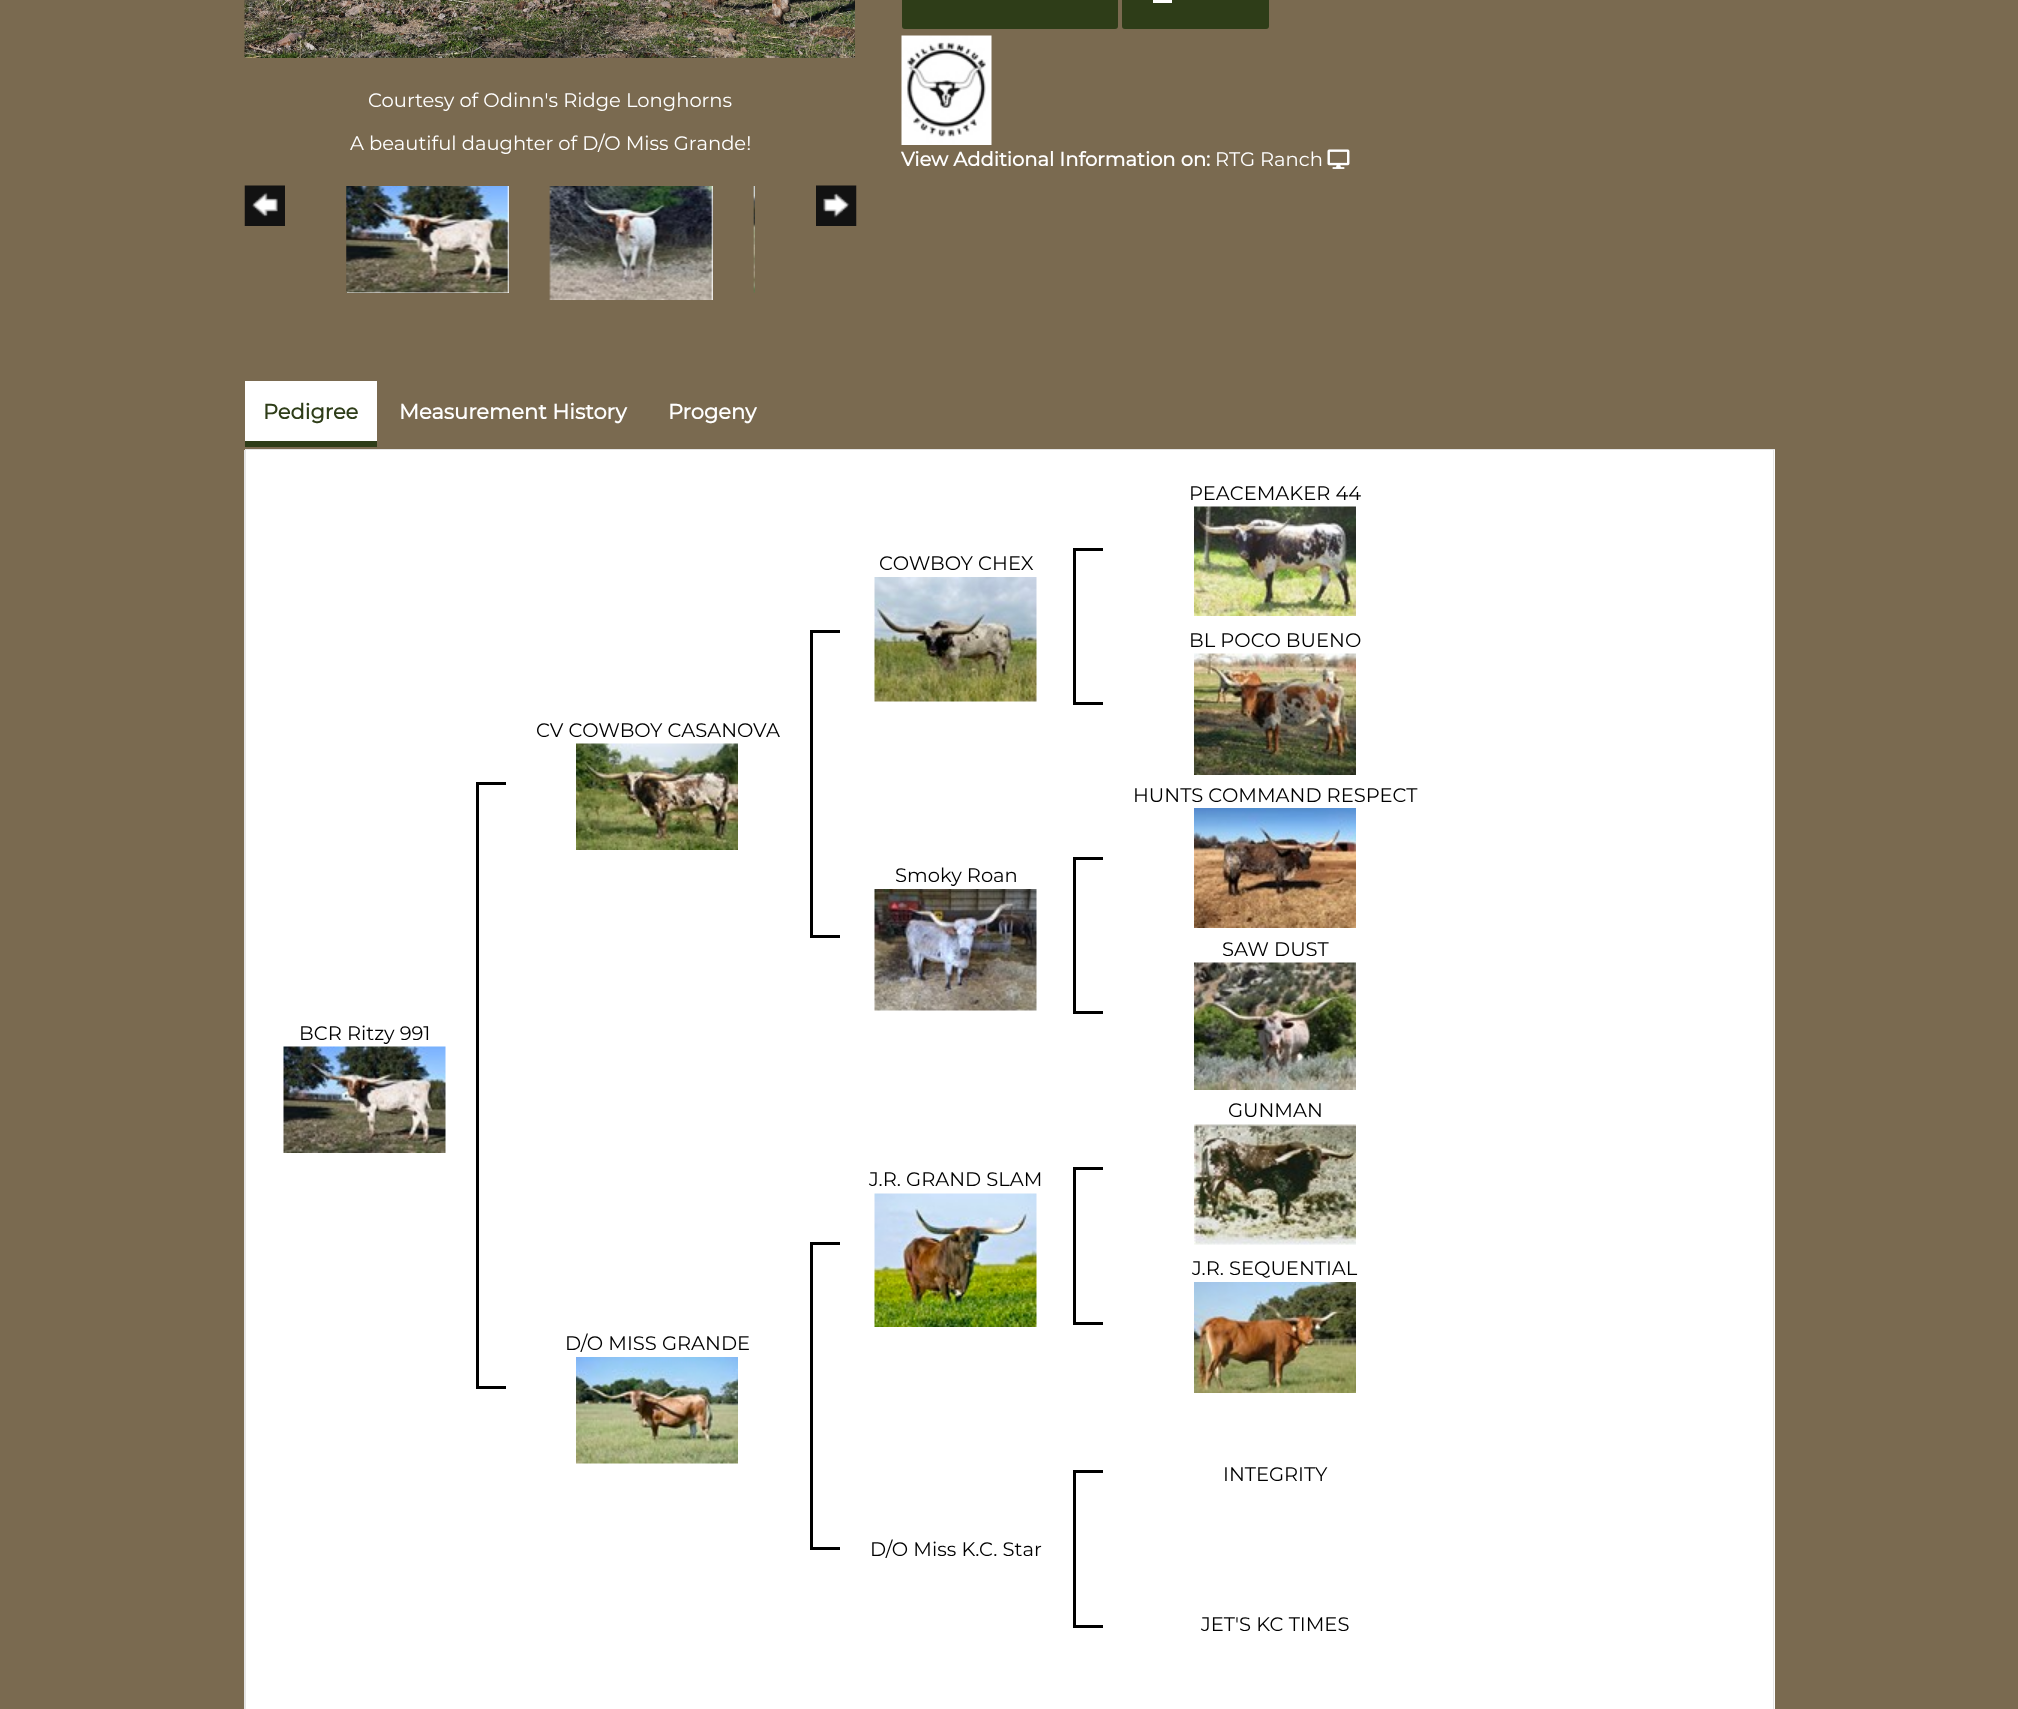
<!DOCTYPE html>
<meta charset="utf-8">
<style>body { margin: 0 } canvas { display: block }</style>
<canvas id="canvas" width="2018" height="1709"></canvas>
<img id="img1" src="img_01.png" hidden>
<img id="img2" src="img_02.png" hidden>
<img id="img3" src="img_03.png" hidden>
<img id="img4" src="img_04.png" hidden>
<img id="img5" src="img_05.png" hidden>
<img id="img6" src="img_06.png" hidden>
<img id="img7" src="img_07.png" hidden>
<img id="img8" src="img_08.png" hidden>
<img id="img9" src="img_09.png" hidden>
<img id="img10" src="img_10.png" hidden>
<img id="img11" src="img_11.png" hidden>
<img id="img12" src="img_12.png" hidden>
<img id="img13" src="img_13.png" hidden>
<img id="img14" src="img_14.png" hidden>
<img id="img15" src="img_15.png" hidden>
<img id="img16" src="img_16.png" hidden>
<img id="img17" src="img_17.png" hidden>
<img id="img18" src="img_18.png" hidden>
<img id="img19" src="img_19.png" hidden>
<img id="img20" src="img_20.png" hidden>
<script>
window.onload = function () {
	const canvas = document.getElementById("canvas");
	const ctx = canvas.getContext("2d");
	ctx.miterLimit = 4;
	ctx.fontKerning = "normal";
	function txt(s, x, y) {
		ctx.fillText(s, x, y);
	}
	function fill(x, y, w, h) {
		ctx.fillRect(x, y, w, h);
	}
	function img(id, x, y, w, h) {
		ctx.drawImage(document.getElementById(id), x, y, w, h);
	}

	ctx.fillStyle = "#7A6A50";
	fill(0, 0, 2018, 1709);
	img("img1", 244, 0, 611, 58);
	img("img2", 244, 185, 41, 41);
	ctx.fillStyle = "#FFFFFF";
	fill(347, 186, 162, 107);
	img("img3", 346, 186, 163, 107);
	fill(711, 186, 2, 114);
	img("img4", 549, 186, 164, 114);
	img("img5", 753, 186, 2, 107);
	img("img6", 816, 185, 41, 41);
	ctx.fillStyle = "#2E3D18";
	ctx.beginPath();
	ctx.roundRect(903, -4, 214, 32, 2);
	ctx.fill();
	ctx.strokeStyle = "#2E3D18";
	ctx.lineWidth = 2;
	ctx.stroke();
	ctx.beginPath();
	ctx.roundRect(1123, -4, 145, 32, 2);
	ctx.fill();
	ctx.stroke();
	ctx.fillStyle = "#FFFFFF";
	fill(1153, 0, 19, 3);
	img("img7", 901, 35, 91, 110);
	img("img8", 1327, 149, 23, 20);
	ctx.fillStyle = "#E5E5E5";
	fill(245, 449, 1530, 1);
	ctx.fillStyle = "#2E3D18";
	fill(245, 441, 132, 6);
	ctx.fillStyle = "#FFFFFF";
	fill(245, 381, 132, 60);
	fill(246, 450, 1529, 1259);
	ctx.fillStyle = "#E5E5E5";
	ctx.beginPath();
	ctx.moveTo(1774, 450);
	ctx.lineTo(1773, 450);
	ctx.lineTo(1773, 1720);
	ctx.lineTo(1774, 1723);
	ctx.lineTo(1774, 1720);
	ctx.closePath();
	ctx.fill();
	ctx.beginPath();
	ctx.moveTo(246, 450);
	ctx.lineTo(246, 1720);
	ctx.lineTo(245, 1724);
	ctx.lineTo(244, 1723);
	ctx.lineTo(244, 450);
	ctx.closePath();
	ctx.fill();
	img("img9", 1194, 506, 162, 110);
	img("img10", 874, 577, 163, 125);
	ctx.fillStyle = "#000000";
	fill(1073, 548, 30, 3);
	fill(1073, 702, 30, 3);
	fill(1073, 548, 3, 157);
	img("img11", 576, 743, 162, 107);
	fill(810, 630, 30, 3);
	fill(810, 935, 30, 3);
	fill(810, 630, 3, 308);
	img("img12", 283, 1046, 163, 107);
	fill(476, 782, 30, 3);
	fill(476, 1386, 30, 3);
	fill(476, 782, 3, 607);
	img("img13", 1194, 653, 162, 122);
	img("img14", 1194, 808, 162, 120);
	img("img15", 874, 889, 163, 122);
	fill(1073, 857, 30, 3);
	fill(1073, 1011, 30, 3);
	fill(1073, 857, 3, 157);
	img("img16", 1194, 962, 162, 128);
	img("img17", 1194, 1124, 162, 121);
	img("img18", 874, 1193, 163, 134);
	fill(1073, 1167, 30, 3);
	fill(1073, 1322, 30, 3);
	fill(1073, 1167, 3, 158);
	img("img19", 576, 1357, 162, 107);
	fill(810, 1242, 30, 3);
	fill(810, 1547, 30, 3);
	fill(810, 1242, 3, 308);
	img("img20", 1194, 1282, 162, 111);
	fill(1073, 1470, 30, 3);
	fill(1073, 1625, 30, 3);
	fill(1073, 1470, 3, 158);
	ctx.font = "19.5px Montserrat";
	ctx.fillStyle = "#FFFFFF";
	txt("Courtesy of Odinn's Ridge Longhorns", 368, 107);
	txt("A beautiful daughter of D/O Miss Grande!", 350, 150);
	ctx.font = "bold 19.5px Montserrat";
	txt("View Additional Information on:", 901, 166);
	ctx.font = "19.5px Montserrat";
	txt("RTG Ranch", 1215, 166);
	ctx.font = "bold 21px Montserrat";
	ctx.fillStyle = "#2E3D18";
	txt("Pedigree", 263, 419);
	ctx.fillStyle = "#FFFFFF";
	txt("Measurement History", 399, 419);
	txt("Progeny", 668, 419);
	ctx.font = "19.5px Montserrat";
	ctx.fillStyle = "#000000";
	txt("PEACEMAKER 44", 1189, 500);
	txt("COWBOY CHEX", 879, 570);
	txt("CV COWBOY CASANOVA", 536, 737);
	txt("BCR Ritzy 991", 299, 1040);
	txt("BL POCO BUENO", 1189, 647);
	txt("HUNTS COMMAND RESPECT", 1133, 802);
	txt("Smoky Roan", 895, 882);
	txt("SAW DUST", 1222, 956);
	txt("GUNMAN", 1228, 1117);
	txt("J.R. GRAND SLAM", 869, 1186);
	txt("D/O MISS GRANDE", 565, 1350);
	txt("J.R. SEQUENTIAL", 1192, 1275);
	txt("D/O Miss K.C. Star", 870, 1556);
	txt("INTEGRITY", 1223, 1481);
	txt("JET'S KC TIMES", 1201, 1631);
};
</script>
